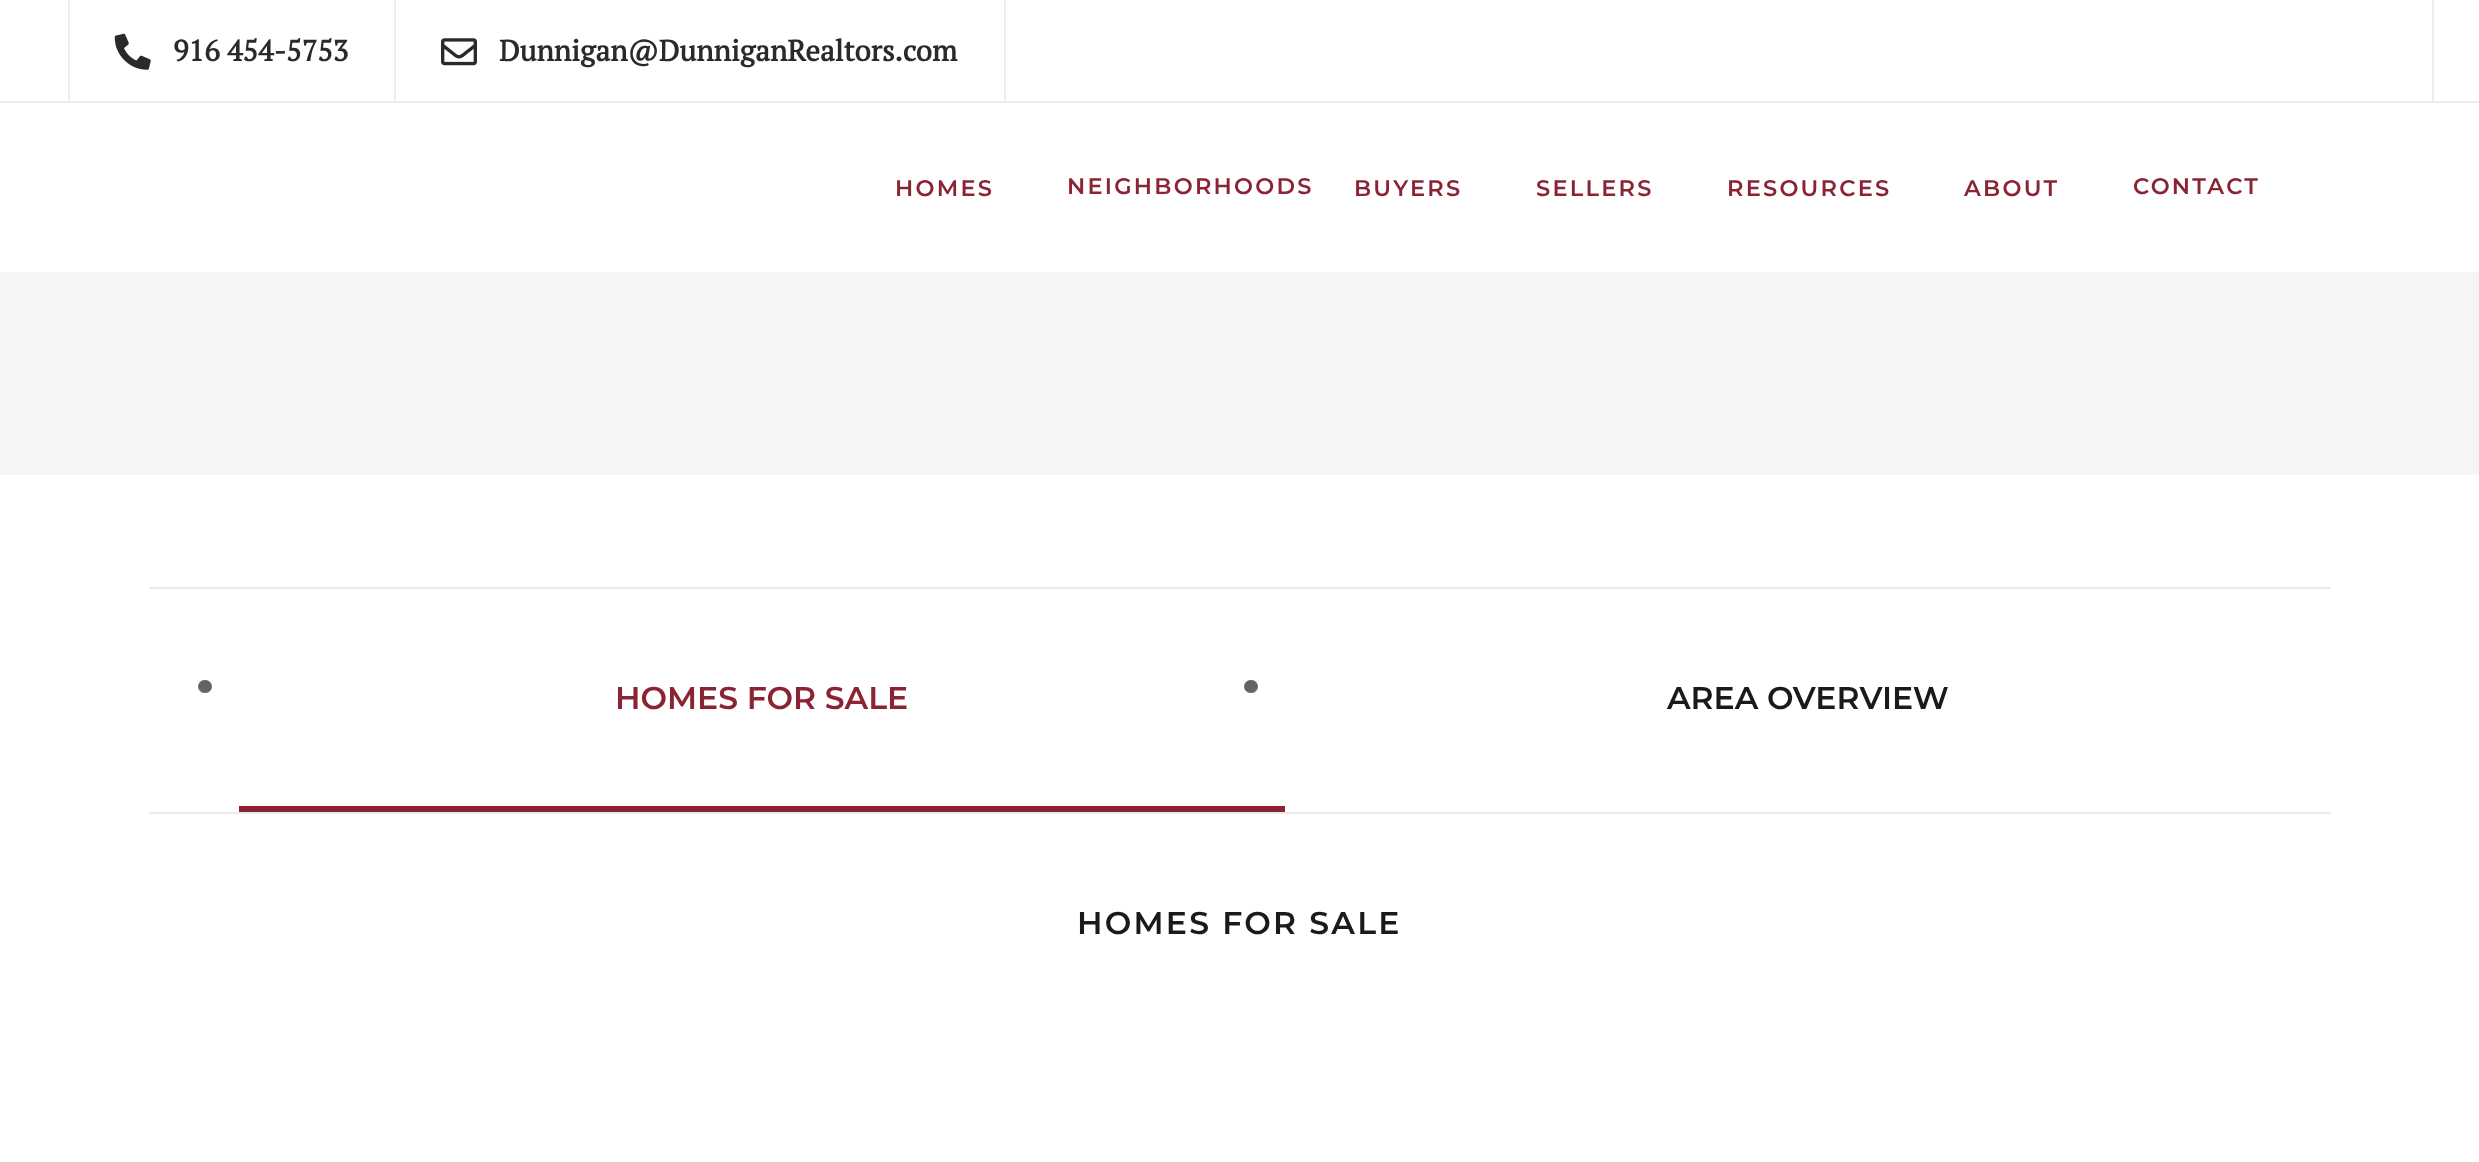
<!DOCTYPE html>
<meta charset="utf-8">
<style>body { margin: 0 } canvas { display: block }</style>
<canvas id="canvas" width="2479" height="1162"></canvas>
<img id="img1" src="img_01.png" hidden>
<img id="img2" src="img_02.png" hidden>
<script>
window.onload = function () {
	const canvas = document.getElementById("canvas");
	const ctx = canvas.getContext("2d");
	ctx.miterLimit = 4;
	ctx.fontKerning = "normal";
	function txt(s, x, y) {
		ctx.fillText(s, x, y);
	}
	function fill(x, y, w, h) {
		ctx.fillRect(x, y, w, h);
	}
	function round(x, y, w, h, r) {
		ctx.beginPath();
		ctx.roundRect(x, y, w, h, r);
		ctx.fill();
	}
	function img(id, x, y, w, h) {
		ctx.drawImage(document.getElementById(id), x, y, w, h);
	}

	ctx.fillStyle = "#FFFFFF";
	fill(0, 0, 2479, 1162);
	ctx.fillStyle = "#EDEDED";
	fill(0, 101, 2479, 2);
	fill(1004, 0, 2, 101);
	fill(68, 0, 2, 101);
	fill(394, 0, 2, 101);
	img("img1", 114, 33, 37, 37);
	img("img2", 441, 38, 36, 28);
	fill(2432, 0, 2, 101);
	ctx.fillStyle = "#F5F5F5";
	fill(0, 272, 2479, 203);
	ctx.fillStyle = "#EAEAEA";
	fill(149, 587, 2182, 2);
	fill(149, 812, 2182, 2);
	ctx.fillStyle = "#626568";
	round(198, 680, 14, 13, 6.5);
	ctx.fillStyle = "#8A2433";
	fill(239, 806, 1046, 6);
	ctx.fillStyle = "#626568";
	round(1244, 680, 14, 13, 6.5);
	ctx.font = "bold 29.25px PT Serif";
	ctx.fillStyle = "#2A2A2A";
	txt("916 454-5753", 173, 61);
	txt("Dunnigan@DunniganRealtors.com", 499, 61);
	ctx.letterSpacing = "2.25px";
	ctx.font = "600 22.5px Montserrat";
	ctx.fillStyle = "#8A2433";
	txt("HOMES", 895, 196);
	txt("NEIGHBORHOODS", 1067, 194);
	txt("BUYERS", 1354, 196);
	txt("SELLERS", 1536, 196);
	txt("RESOURCES", 1727, 196);
	txt("ABOUT", 1964, 196);
	txt("CONTACT", 2133, 194);
	ctx.letterSpacing = "0px";
	ctx.font = "600 31.5px Montserrat";
	txt("HOMES FOR SALE", 615, 709);
	ctx.fillStyle = "#1A1A1A";
	txt("AREA OVERVIEW", 1667, 709);
	ctx.letterSpacing = "2.25px";
	txt("HOMES FOR SALE", 1077, 934);
};
</script>
